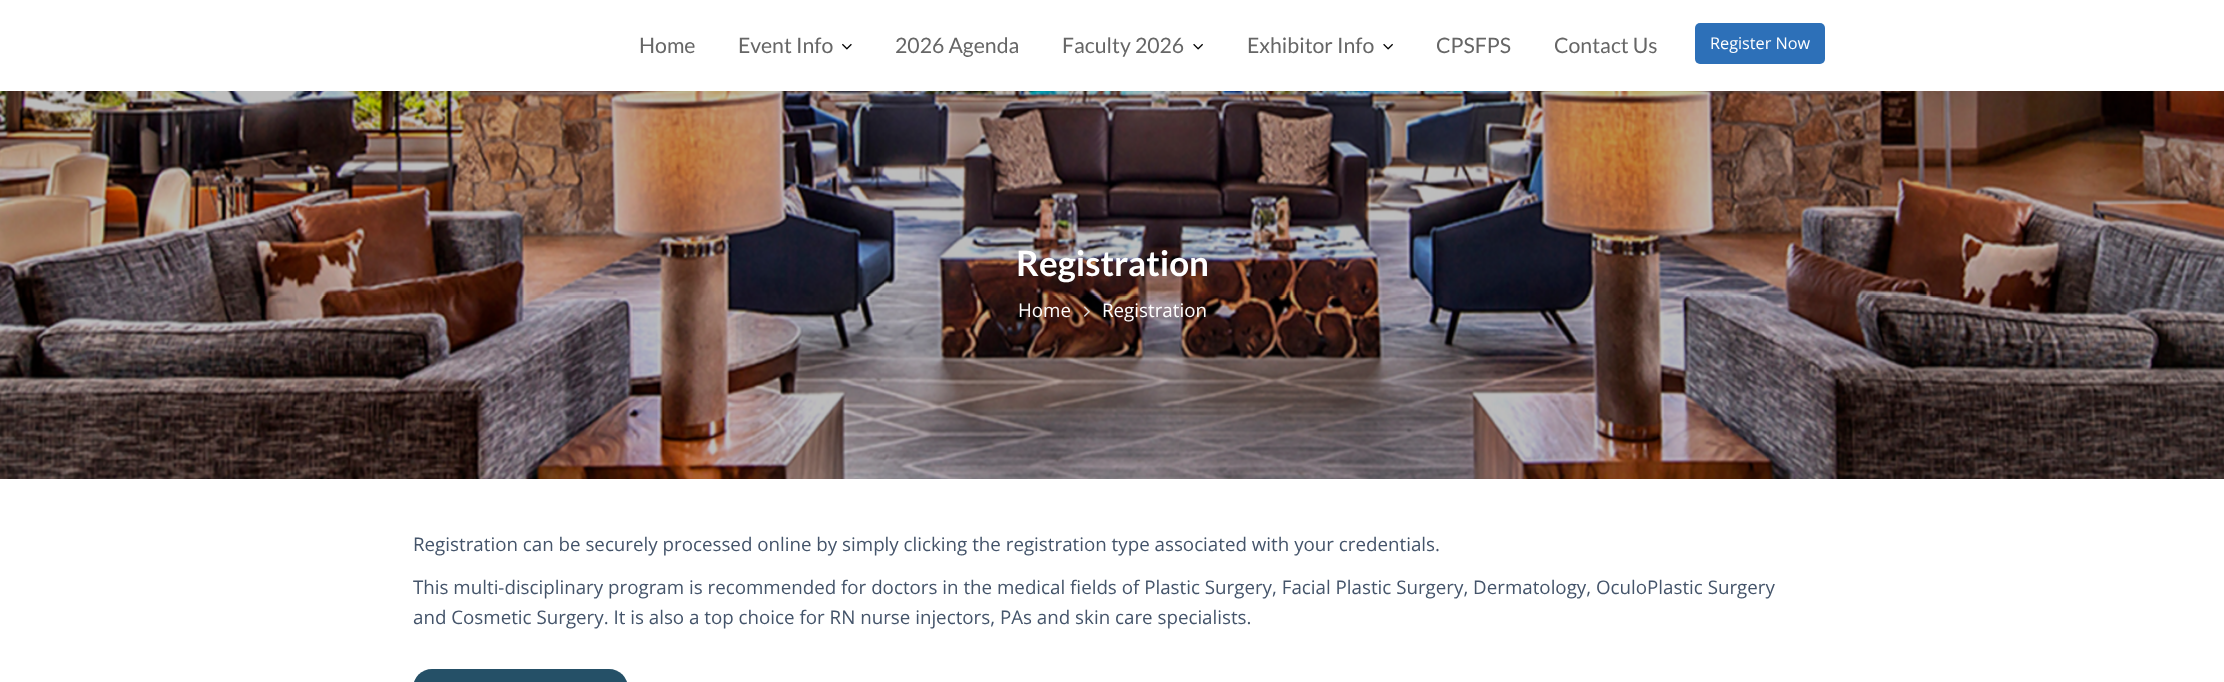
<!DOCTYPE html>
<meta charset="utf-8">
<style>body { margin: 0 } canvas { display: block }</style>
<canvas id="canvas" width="2224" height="682"></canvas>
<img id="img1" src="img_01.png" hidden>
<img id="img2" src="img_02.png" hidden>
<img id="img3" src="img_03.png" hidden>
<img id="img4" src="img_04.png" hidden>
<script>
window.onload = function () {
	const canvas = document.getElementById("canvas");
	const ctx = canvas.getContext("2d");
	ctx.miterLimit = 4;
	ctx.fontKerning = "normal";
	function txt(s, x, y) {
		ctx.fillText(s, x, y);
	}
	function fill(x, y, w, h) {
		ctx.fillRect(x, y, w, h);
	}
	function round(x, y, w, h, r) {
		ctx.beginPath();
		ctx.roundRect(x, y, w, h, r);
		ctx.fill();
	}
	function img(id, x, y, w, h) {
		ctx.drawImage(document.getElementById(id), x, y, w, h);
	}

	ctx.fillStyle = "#FFFFFF";
	fill(0, 0, 2224, 682);
	img("img1", 842, 43, 10, 7);
	img("img2", 1193, 43, 10, 7);
	img("img2", 1383, 43, 10, 7);
	ctx.fillStyle = "#2D70B8";
	round(1695, 23, 130, 41, 5);
	img("img3", 0, 91, 2224, 388);
	img("img4", 1083, 306, 7, 11);
	ctx.fillStyle = "#255067";
	round(413, 669, 215, 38, 24.5);
	ctx.font = "21.25px Lato";
	ctx.fillStyle = "#666666";
	txt("Home", 639, 53);
	txt("Event Info", 738, 53);
	txt("2026 Agenda", 895, 53);
	txt("Faculty 2026", 1062, 53);
	txt("Exhibitor Info", 1247, 53);
	txt("CPSFPS", 1436, 53);
	txt("Contact Us", 1554, 53);
	ctx.font = "16.25px Open Sans";
	ctx.fillStyle = "#FFFFFF";
	txt("Register Now", 1710, 49);
	ctx.font = "bold 35px Lato";
	txt("Registration", 1016, 276);
	ctx.font = "18.75px Open Sans";
	txt("Home", 1018, 317);
	txt("Registration", 1102, 317);
	ctx.fillStyle = "#44546A";
	txt("Registration can be securely processed online by simply clicking the registration type associated with your credentials.", 413, 551);
	txt("This multi-disciplinary program is recommended for doctors in the medical fields of Plastic Surgery, Facial Plastic Surgery, Dermatology, OculoPlastic Surgery", 413, 594);
	txt("and Cosmetic Surgery. It is also a top choice for RN nurse injectors, PAs and skin care specialists.", 413, 624);
};
</script>
